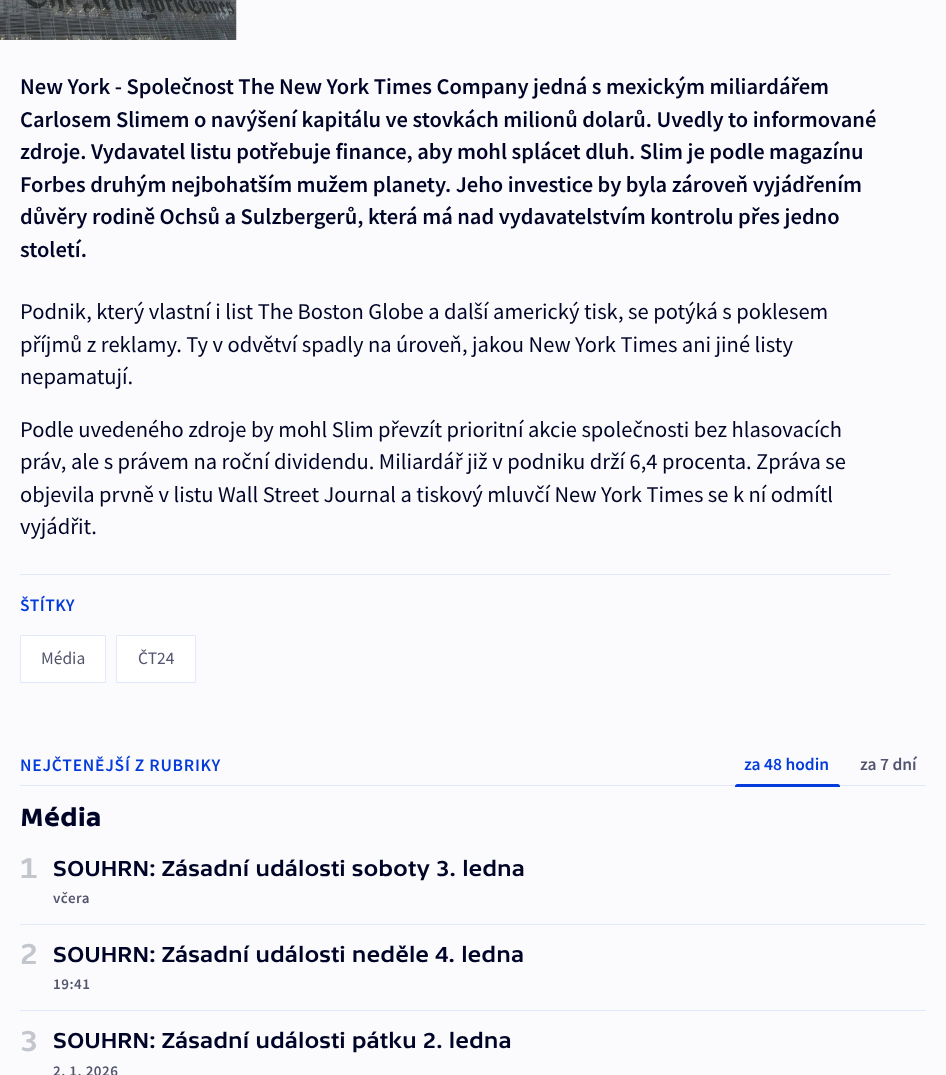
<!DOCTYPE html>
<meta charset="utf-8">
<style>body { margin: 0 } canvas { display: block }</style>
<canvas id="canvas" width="946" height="1075"></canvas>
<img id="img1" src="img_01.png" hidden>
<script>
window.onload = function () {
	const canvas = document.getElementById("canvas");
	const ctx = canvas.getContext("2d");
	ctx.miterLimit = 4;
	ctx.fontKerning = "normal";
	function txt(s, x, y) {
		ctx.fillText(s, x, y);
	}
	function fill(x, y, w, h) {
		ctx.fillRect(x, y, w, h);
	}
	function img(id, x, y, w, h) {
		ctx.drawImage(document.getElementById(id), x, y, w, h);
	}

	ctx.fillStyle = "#FBFBFD";
	fill(0, 0, 946, 1075);
	img("img1", 0, 0, 237, 40);
	ctx.fillStyle = "#E1E8FB";
	fill(20, 574, 870, 1);
	ctx.fillStyle = "#FFFFFF";
	ctx.beginPath();
	ctx.roundRect(20.5, 635.5, 85, 47, 0.5);
	ctx.fill();
	ctx.strokeStyle = "#E1E8FB";
	ctx.stroke();
	ctx.beginPath();
	ctx.roundRect(116.5, 635.5, 79, 47, 0.5);
	ctx.fill();
	ctx.stroke();
	ctx.fillStyle = "#E1E8FB";
	fill(20, 785, 906, 1);
	ctx.fillStyle = "#043CDC";
	ctx.beginPath();
	ctx.roundRect(735, 784, 105, 3, [2.5, 2.5, 0, 0]);
	ctx.fill();
	ctx.fillStyle = "#E1E8FB";
	fill(20, 924, 906, 1);
	fill(20, 1010, 906, 1);
	ctx.font = "600 22.5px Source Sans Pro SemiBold";
	ctx.fillStyle = "#000528";
	txt("New York - Společnost The New York Times Company jedná s mexickým miliardářem", 20, 94);
	txt("Carlosem Slimem o navýšení kapitálu ve stovkách milionů dolarů. Uvedly to informované", 20, 127);
	txt("zdroje. Vydavatel listu potřebuje finance, aby mohl splácet dluh. Slim je podle magazínu", 20, 159);
	txt("Forbes druhým nejbohatším mužem planety. Jeho investice by byla zároveň vyjádřením", 20, 192);
	txt("důvěry rodině Ochsů a Sulzbergerů, která má nad vydavatelstvím kontrolu přes jedno", 20, 224);
	txt("století.", 20, 257);
	ctx.font = "22.5px Source Sans Pro";
	txt("Podnik, který vlastní i list The Boston Globe a další americký tisk, se potýká s poklesem", 20, 319);
	txt("příjmů z reklamy. Ty v odvětví spadly na úroveň, jakou New York Times ani jiné listy", 20, 352);
	txt("nepamatují.", 20, 384);
	txt("Podle uvedeného zdroje by mohl Slim převzít prioritní akcie společnosti bez hlasovacích", 20, 437);
	txt("práv, ale s právem na roční dividendu. Miliardář již v podniku drží 6,4 procenta. Zpráva se", 20, 469);
	txt("objevila prvně v listu Wall Street Journal a tiskový mluvčí New York Times se k ní odmítl", 20, 502);
	txt("vyjádřit.", 20, 534);
	ctx.letterSpacing = "0.5px";
	ctx.font = "600 17.5px Source Sans Pro SemiBold";
	ctx.fillStyle = "#043CDC";
	txt("ŠTÍTKY", 20, 611);
	ctx.letterSpacing = "0px";
	ctx.font = "17.5px Source Sans Pro";
	ctx.fillStyle = "#52556D";
	txt("Média", 41, 664);
	txt("ČT24", 138, 664);
	ctx.letterSpacing = "0.75px";
	ctx.font = "600 17.5px Source Sans Pro SemiBold";
	ctx.fillStyle = "#043CDC";
	txt("NEJČTENĚJŠÍ Z RUBRIKY", 20, 771);
	ctx.letterSpacing = "0px";
	txt("za 48 hodin", 744, 770);
	ctx.fillStyle = "#52556D";
	txt("za 7 dní", 860, 770);
	ctx.font = "bold 26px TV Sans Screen";
	ctx.fillStyle = "#000528";
	txt("Média", 20, 826);
	ctx.font = "30px TV Sans Screen";
	ctx.fillStyle = "#C3C6CC";
	txt("1", 20, 878);
	ctx.font = "22.5px TV Sans Screen";
	ctx.fillStyle = "#000528";
	txt("SOUHRN: Zásadní události soboty 3. ledna", 53, 876);
	ctx.letterSpacing = "0.5px";
	ctx.font = "600 15px Source Sans Pro SemiBold";
	ctx.fillStyle = "#52556D";
	txt("včera", 53, 903);
	ctx.letterSpacing = "0px";
	ctx.font = "30px TV Sans Screen";
	ctx.fillStyle = "#C3C6CC";
	txt("2", 20, 964);
	ctx.font = "22.5px TV Sans Screen";
	ctx.fillStyle = "#000528";
	txt("SOUHRN: Zásadní události neděle 4. ledna", 53, 962);
	ctx.letterSpacing = "0.5px";
	ctx.font = "600 15px Source Sans Pro SemiBold";
	ctx.fillStyle = "#52556D";
	txt("19:41", 53, 989);
	ctx.letterSpacing = "0px";
	ctx.font = "30px TV Sans Screen";
	ctx.fillStyle = "#C3C6CC";
	txt("3", 20, 1051);
	ctx.font = "22.5px TV Sans Screen";
	ctx.fillStyle = "#000528";
	txt("SOUHRN: Zásadní události pátku 2. ledna", 53, 1048);
	ctx.letterSpacing = "0.5px";
	ctx.font = "600 15px Source Sans Pro SemiBold";
	ctx.fillStyle = "#52556D";
	txt("2. 1. 2026", 53, 1076);
};
</script>
